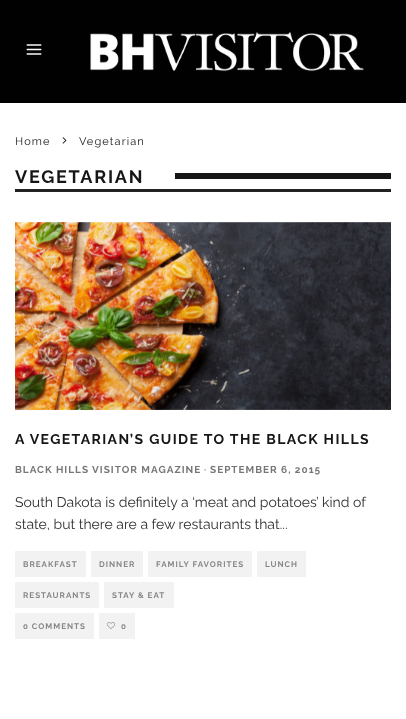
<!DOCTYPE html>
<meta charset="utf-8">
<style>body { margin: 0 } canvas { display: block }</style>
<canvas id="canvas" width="406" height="719"></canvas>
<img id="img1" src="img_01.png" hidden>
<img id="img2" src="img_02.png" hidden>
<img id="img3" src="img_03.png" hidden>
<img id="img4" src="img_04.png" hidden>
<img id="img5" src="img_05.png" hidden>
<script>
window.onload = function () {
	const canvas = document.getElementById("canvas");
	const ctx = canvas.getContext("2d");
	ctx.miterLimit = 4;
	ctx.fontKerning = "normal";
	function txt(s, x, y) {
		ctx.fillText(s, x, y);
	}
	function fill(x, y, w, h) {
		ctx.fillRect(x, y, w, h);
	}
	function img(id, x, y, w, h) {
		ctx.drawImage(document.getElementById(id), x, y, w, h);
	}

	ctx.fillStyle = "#FFFFFF";
	fill(0, 0, 406, 719);
	ctx.fillStyle = "#010101";
	fill(0, 0, 406, 103);
	img("img1", 26, 44, 16, 11);
	img("img2", 90, 32, 274, 40);
	img("img3", 62, 137, 5, 7);
	ctx.fillStyle = "#222222";
	fill(15, 189, 376, 3);
	ctx.fillStyle = "#161616";
	fill(175, 173, 216, 6);
	img("img4", 15, 222, 376, 188);
	ctx.fillStyle = "#F2F2F2";
	fill(15, 551, 71, 26);
	fill(91, 551, 52, 26);
	fill(148, 551, 104, 26);
	fill(257, 551, 49, 26);
	fill(15, 582, 84, 26);
	fill(104, 582, 70, 26);
	fill(15, 613, 79, 26);
	fill(99, 613, 36, 26);
	img("img5", 107, 622, 8, 7);
	ctx.letterSpacing = "1.1px";
	ctx.font = "11px Raleway";
	ctx.fillStyle = "#161616";
	txt("Home", 15, 145);
	txt("Vegetarian", 79, 145);
	ctx.letterSpacing = "1.75px";
	ctx.font = "bold 18px Raleway";
	txt("VEGETARIAN", 15, 183);
	ctx.letterSpacing = "1.4px";
	ctx.font = "bold 14px Raleway";
	txt("A VEGETARIAN’S GUIDE TO THE BLACK HILLS", 15, 444);
	ctx.letterSpacing = "1px";
	ctx.font = "bold 10px Raleway";
	ctx.fillStyle = "#777777";
	txt("BLACK HILLS VISITOR MAGAZINE", 15, 473);
	ctx.fillStyle = "#A0A0A0";
	txt("·", 204, 473);
	ctx.fillStyle = "#777777";
	txt("SEPTEMBER 6, 2015", 210, 473);
	ctx.letterSpacing = "0px";
	ctx.font = "14px Raleway";
	ctx.fillStyle = "#2E2E2E";
	txt("South Dakota is definitely a ‘meat and potatoes’ kind of", 15, 507);
	txt("state, but there are a few restaurants that...", 15, 529);
	ctx.letterSpacing = "1px";
	ctx.font = "bold 8px Raleway";
	ctx.fillStyle = "#868686";
	txt("BREAKFAST", 23, 567);
	txt("DINNER", 99, 567);
	txt("FAMILY FAVORITES", 156, 567);
	txt("LUNCH", 265, 567);
	txt("RESTAURANTS", 23, 598);
	txt("STAY & EAT", 112, 598);
	txt("0 COMMENTS", 23, 629);
	txt("0", 121, 629);
};
</script>
